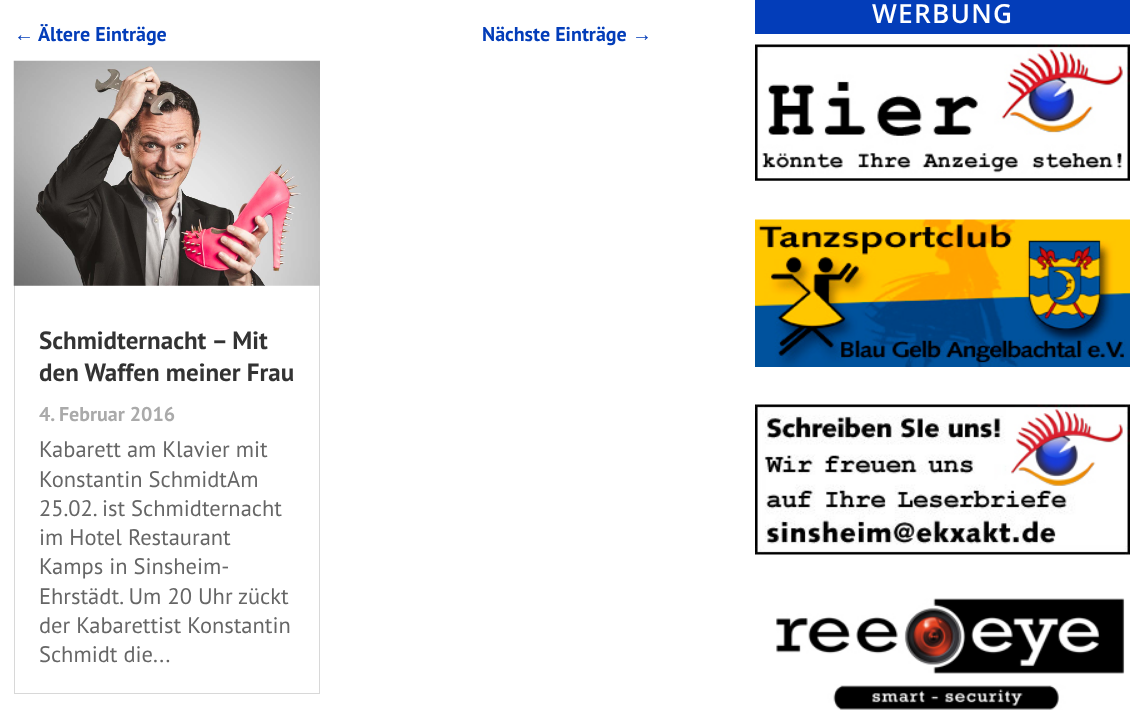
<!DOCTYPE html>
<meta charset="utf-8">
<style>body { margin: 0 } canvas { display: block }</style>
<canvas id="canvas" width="1138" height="711"></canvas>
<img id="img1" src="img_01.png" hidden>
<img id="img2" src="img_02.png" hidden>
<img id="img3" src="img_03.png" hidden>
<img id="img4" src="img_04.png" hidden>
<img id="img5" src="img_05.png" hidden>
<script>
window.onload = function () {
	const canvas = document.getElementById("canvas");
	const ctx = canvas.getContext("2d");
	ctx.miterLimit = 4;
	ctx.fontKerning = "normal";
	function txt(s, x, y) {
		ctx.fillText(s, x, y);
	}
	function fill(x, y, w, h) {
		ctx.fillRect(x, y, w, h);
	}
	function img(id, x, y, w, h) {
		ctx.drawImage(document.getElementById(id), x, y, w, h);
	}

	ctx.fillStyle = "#FFFFFF";
	fill(0, 0, 1138, 711);
	ctx.fillStyle = "#033DB9";
	fill(755, 0, 375, 34);
	img("img1", 755, 44, 375, 137);
	img("img2", 755, 219, 375, 148);
	img("img3", 755, 404, 375, 151);
	img("img4", 776, 598, 349, 112);
	ctx.strokeStyle = "#D8D8D8";
	ctx.strokeRect(14.5, 61.5, 305, 632);
	img("img5", 13, 60, 307, 226);
	ctx.letterSpacing = "1.25px";
	ctx.font = "600 26.25px Open Sans";
	ctx.fillStyle = "#FFFFFF";
	txt("WERBUNG", 872, 23);
	ctx.letterSpacing = "0px";
	ctx.font = "bold 20px Liberation Sans";
	ctx.fillStyle = "#033DB9";
	txt("←", 14, 41);
	ctx.font = "bold 20px PT Sans";
	txt("Ältere Einträge", 38, 41);
	txt("Nächste Einträge", 482, 41);
	ctx.font = "bold 20px Liberation Sans";
	txt("→", 632, 41);
	ctx.font = "bold 25px PT Sans";
	ctx.fillStyle = "#333333";
	txt("Schmidternacht – Mit", 39, 349);
	txt("den Waffen meiner Frau", 39, 381);
	ctx.font = "bold 20px PT Sans";
	ctx.fillStyle = "#AAAAAA";
	txt("4. Februar 2016", 39, 421);
	ctx.font = "22.5px PT Sans";
	ctx.fillStyle = "#666666";
	txt("Kabarett am Klavier mit", 39, 457);
	txt("Konstantin SchmidtAm", 39, 487);
	txt("25.02. ist Schmidternacht", 39, 516);
	txt("im Hotel Restaurant", 39, 545);
	txt("Kamps in Sinsheim-", 39, 574);
	txt("Ehrstädt. Um 20 Uhr zückt", 39, 604);
	txt("der Kabarettist Konstantin", 39, 633);
	txt("Schmidt die...", 39, 662);
};
</script>
